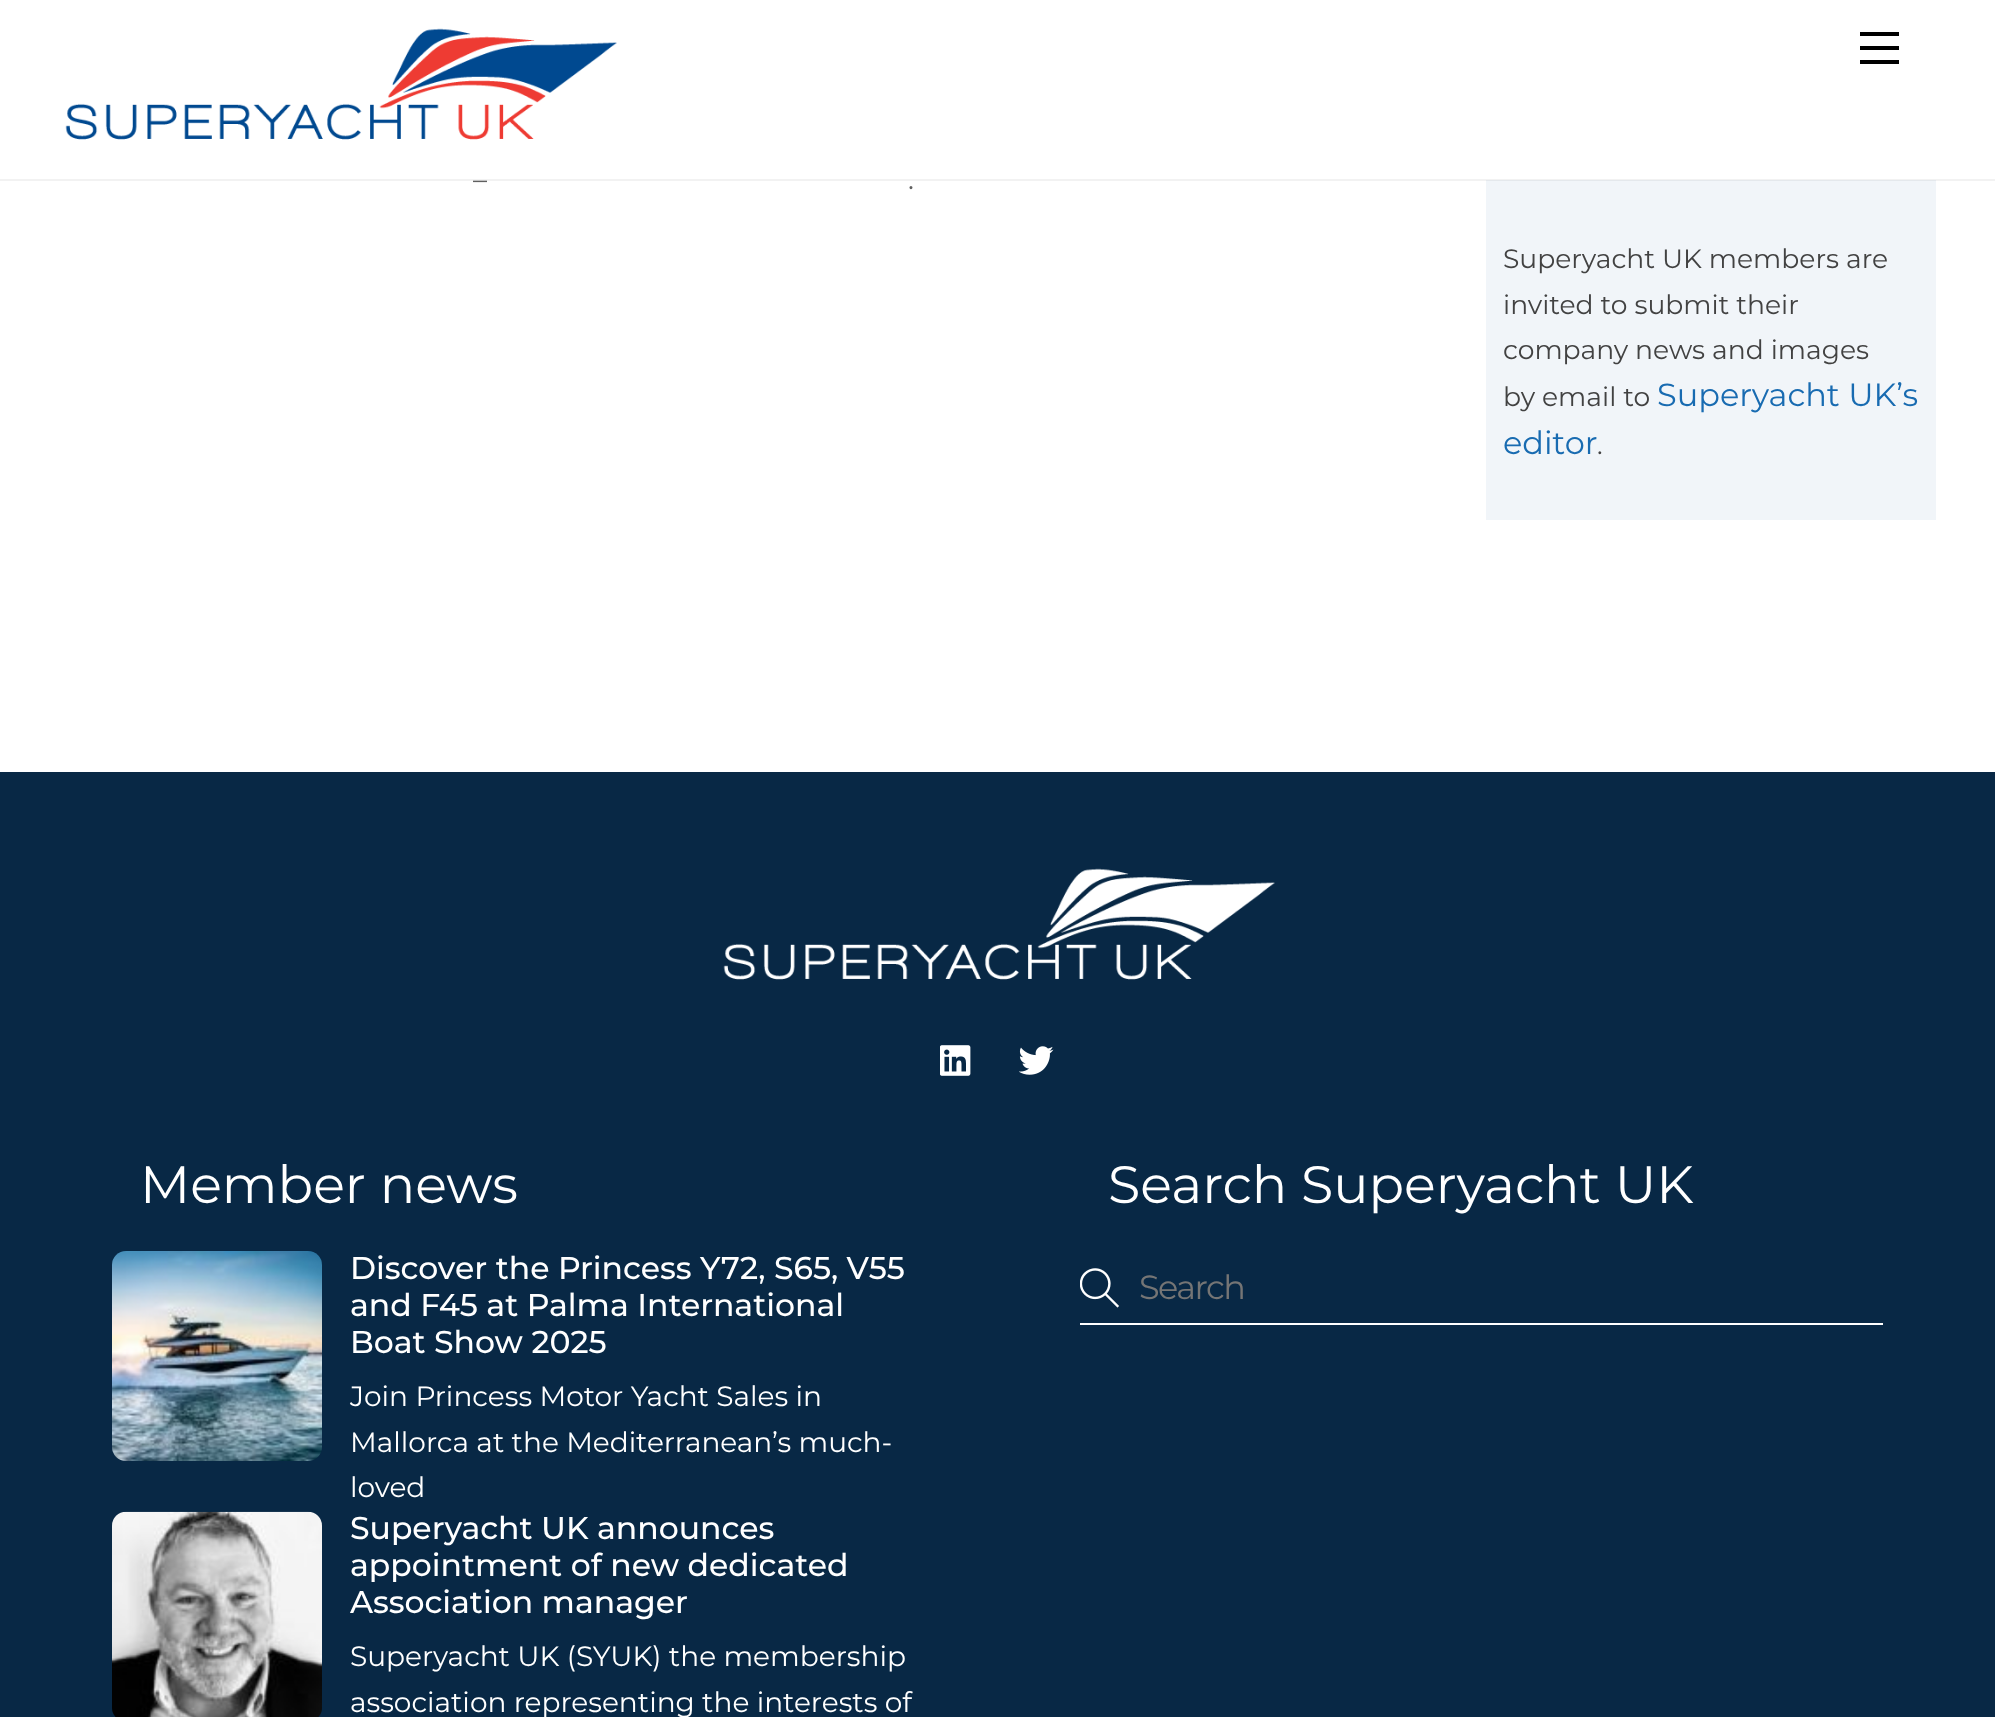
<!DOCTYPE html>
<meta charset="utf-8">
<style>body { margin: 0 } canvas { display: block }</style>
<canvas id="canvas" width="1995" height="1717"></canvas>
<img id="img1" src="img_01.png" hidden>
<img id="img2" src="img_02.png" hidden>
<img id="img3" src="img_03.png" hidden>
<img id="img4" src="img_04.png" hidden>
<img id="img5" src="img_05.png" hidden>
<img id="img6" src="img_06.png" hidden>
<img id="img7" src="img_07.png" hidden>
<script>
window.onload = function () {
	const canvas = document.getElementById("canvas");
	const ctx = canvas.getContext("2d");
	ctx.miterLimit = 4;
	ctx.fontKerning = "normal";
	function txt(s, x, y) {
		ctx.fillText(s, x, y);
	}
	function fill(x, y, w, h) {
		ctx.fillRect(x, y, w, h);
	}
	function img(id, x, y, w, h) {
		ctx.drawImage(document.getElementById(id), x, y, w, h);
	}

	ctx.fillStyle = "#FFFFFF";
	fill(0, 0, 1995, 1717);
	ctx.fillStyle = "#F1F5F9";
	fill(1486, 180, 450, 340);
	ctx.fillStyle = "rgba(0, 0, 0, 0.05)";
	fill(0, 179, 1995, 2);
	img("img1", 65, 28, 552, 112);
	ctx.fillStyle = "#000000";
	fill(1860, 60, 39, 4);
	fill(1860, 32, 39, 4);
	fill(1860, 46, 39, 4);
	ctx.fillStyle = "#082845";
	fill(0, 772, 1995, 945);
	img("img2", 723, 868, 552, 112);
	img("img3", 940, 1045, 31, 31);
	img("img4", 1019, 1046, 35, 29);
	img("img5", 112, 1251, 210, 210);
	img("img6", 112, 1511, 210, 206);
	ctx.fillStyle = "#FFFFFF";
	fill(1080, 1323, 803, 2);
	img("img7", 1080, 1268, 39, 40);
	ctx.font = "28px Montserrat";
	ctx.fillStyle = "#606060";
	txt("–", 473, 189);
	txt(".", 908, 189);
	ctx.font = "26.6px Montserrat";
	ctx.fillStyle = "#424242";
	txt("Superyacht UK members are", 1503, 268);
	txt("invited to submit their", 1503, 314);
	txt("company news and images", 1503, 359);
	txt("by email to", 1503, 406);
	ctx.font = "32px Montserrat";
	ctx.fillStyle = "#186BB1";
	txt("Superyacht UK’s", 1657, 406);
	txt("editor", 1503, 454);
	ctx.font = "26.6px Montserrat";
	ctx.fillStyle = "#424242";
	txt(".", 1597, 454);
	ctx.font = "52.5px Montserrat";
	ctx.fillStyle = "#FFFFFF";
	txt("Member news", 140, 1203);
	ctx.font = "500 31.5px Montserrat";
	txt("Discover the Princess Y72, S65, V55", 350, 1279);
	txt("and F45 at Palma International", 350, 1316);
	txt("Boat Show 2025", 350, 1353);
	ctx.font = "28px Montserrat";
	txt("Join Princess Motor Yacht Sales in", 350, 1406);
	txt("Mallorca at the Mediterranean’s much-", 350, 1452);
	txt("loved", 350, 1497);
	ctx.font = "500 31.5px Montserrat";
	txt("Superyacht UK announces", 350, 1539);
	txt("appointment of new dedicated", 350, 1576);
	txt("Association manager", 350, 1613);
	ctx.font = "28px Montserrat";
	txt("Superyacht UK (SYUK) the membership", 350, 1666);
	txt("association representing the interests of", 350, 1712);
	ctx.font = "52.5px Montserrat";
	txt("Search Superyacht UK", 1108, 1203);
	ctx.letterSpacing = "-1.5px";
	ctx.font = "33.5px Montserrat";
	ctx.fillStyle = "#757575";
	txt("Search", 1139, 1299);
};
</script>
